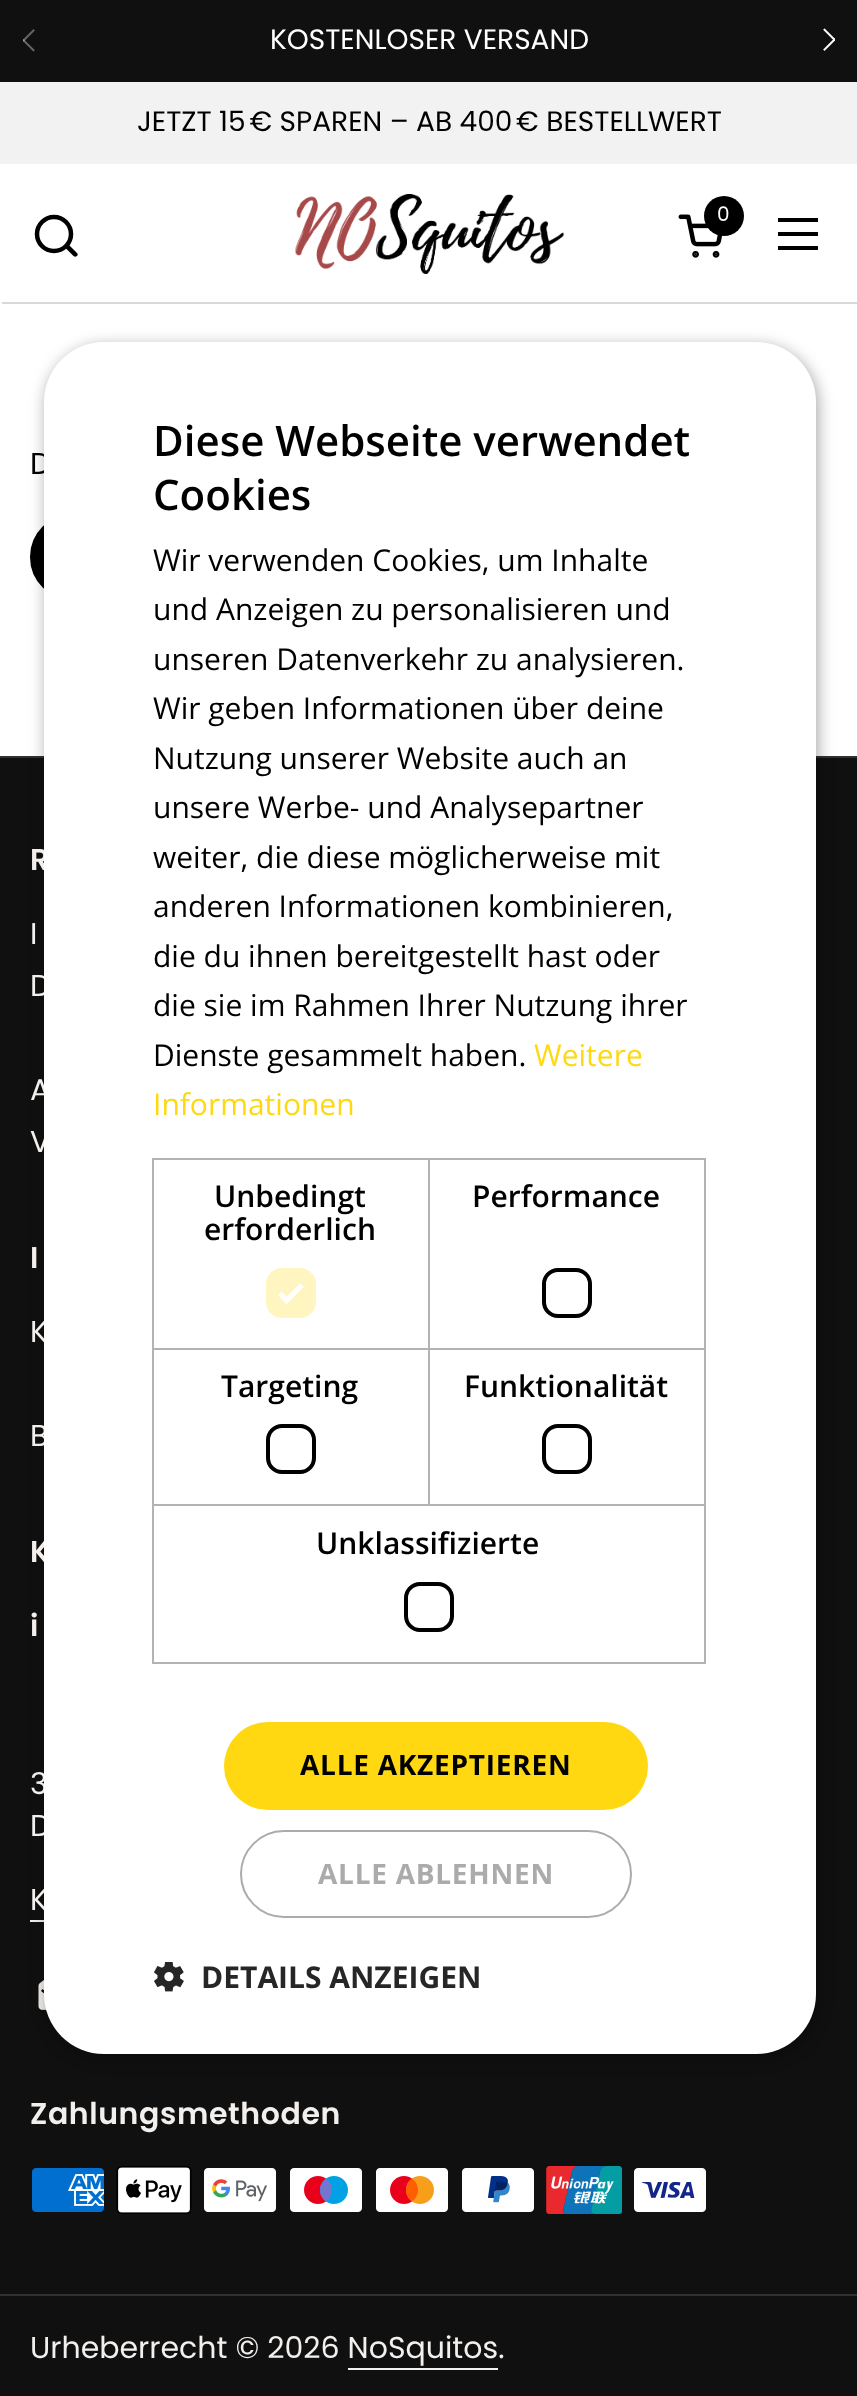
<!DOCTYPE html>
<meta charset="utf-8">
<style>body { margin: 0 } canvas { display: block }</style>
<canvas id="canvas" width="857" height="2396"></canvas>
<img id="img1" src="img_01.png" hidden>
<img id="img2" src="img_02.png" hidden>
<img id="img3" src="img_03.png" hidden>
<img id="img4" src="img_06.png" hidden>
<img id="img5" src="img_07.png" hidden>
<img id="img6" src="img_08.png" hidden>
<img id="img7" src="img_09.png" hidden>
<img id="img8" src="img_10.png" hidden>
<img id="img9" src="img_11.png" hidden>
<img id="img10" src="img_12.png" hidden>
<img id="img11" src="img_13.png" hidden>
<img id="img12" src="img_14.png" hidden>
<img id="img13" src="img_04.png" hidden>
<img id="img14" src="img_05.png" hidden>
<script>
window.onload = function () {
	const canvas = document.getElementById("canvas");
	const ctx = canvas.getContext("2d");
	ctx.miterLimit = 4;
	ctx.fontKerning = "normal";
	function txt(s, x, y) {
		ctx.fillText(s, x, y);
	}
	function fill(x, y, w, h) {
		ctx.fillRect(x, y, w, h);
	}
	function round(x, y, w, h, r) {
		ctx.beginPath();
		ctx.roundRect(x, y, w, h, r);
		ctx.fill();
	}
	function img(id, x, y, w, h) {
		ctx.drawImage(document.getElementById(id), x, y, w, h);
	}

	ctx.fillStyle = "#FFFFFF";
	fill(0, 0, 857, 2396);
	ctx.fillStyle = "#101010";
	fill(0, 0, 857, 82);
	img("img1", 23, 29, 12, 23);
	img("img2", 823, 28, 12, 23);
	ctx.fillStyle = "#F2F2F2";
	fill(0, 82, 857, 82);
	ctx.beginPath();
	ctx.arc(54, 234, 17, 0, Math.PI * 2);
	ctx.strokeStyle = "#000000";
	ctx.lineWidth = 4.5;
	ctx.stroke();
	ctx.fillStyle = "#000000";
	ctx.beginPath();
	ctx.moveTo(69, 245);
	ctx.lineTo(67.5, 243);
	ctx.lineTo(64, 246.5);
	ctx.lineTo(65.5, 248);
	ctx.closePath();
	ctx.moveTo(73.5, 256);
	ctx.bezierCurveTo(76, 258, 79, 255, 77, 253);
	ctx.closePath();
	ctx.moveTo(65.5, 248);
	ctx.lineTo(73.5, 256);
	ctx.lineTo(77, 253);
	ctx.lineTo(69, 245);
	ctx.closePath();
	ctx.fill();
	img("img3", 295, 194, 269, 80);
	ctx.beginPath();
	ctx.arc(724, 216, 20, 0, Math.PI * 2);
	ctx.fill();
	fill(778, 218, 40, 4);
	fill(778, 232, 40, 4);
	fill(778, 246, 40, 4);
	ctx.fillStyle = "#D9D9D9";
	fill(2, 302, 855, 2);
	ctx.fillStyle = "#000000";
	ctx.beginPath();
	ctx.roundRect(31, 515, 248, 84, 42);
	ctx.fill();
	ctx.lineWidth = 2;
	ctx.stroke();
	ctx.fillStyle = "#101010";
	fill(0, 758, 857, 1638);
	ctx.fillStyle = "#323131";
	fill(0, 756, 857, 2);
	ctx.fillStyle = "#F2EFEC";
	fill(30, 1920, 14, 2);
	img("img4", 38, 1980, 9, 30);
	ctx.fillStyle = "rgba(0, 0, 0, 0.35)";
	ctx.filter = "blur(8px)";
	ctx.beginPath();
	ctx.roundRect(46, 346, 772, 1712, 60);
	ctx.fill();
	ctx.filter = "none";
	img("img5", 32, 2168, 72, 44);
	img("img6", 116, 2166, 76, 48);
	img("img7", 204, 2168, 72, 44);
	img("img8", 290, 2168, 72, 44);
	img("img9", 376, 2168, 72, 44);
	img("img10", 462, 2168, 72, 44);
	img("img11", 546, 2166, 76, 48);
	img("img12", 634, 2168, 72, 44);
	ctx.fillStyle = "#323131";
	fill(0, 2294, 857, 2);
	ctx.fillStyle = "#F2EFEC";
	fill(348, 2368, 150, 2);
	ctx.font = "28px Poppins";
	ctx.fillStyle = "#FFFFFF";
	txt("KOSTENLOSER VERSAND", 270, 49);
	ctx.fillStyle = "#000000";
	txt("JETZT 15 € SPAREN – AB 400 € BESTELLWERT", 137, 131);
	ctx.font = "20px Poppins";
	ctx.fillStyle = "#FFFFFF";
	txt("0", 717, 221);
	img("img13", 678, 214, 44, 44);
	ctx.font = "30px Poppins";
	ctx.fillStyle = "#000000";
	txt("D", 30, 474);
	ctx.letterSpacing = "0.6px";
	ctx.font = "600 30px Poppins";
	ctx.fillStyle = "#F2EFEC";
	txt("R", 30, 870);
	ctx.letterSpacing = "0px";
	ctx.font = "30px Poppins";
	txt("I", 30, 944);
	txt("D", 30, 996);
	txt("A", 30, 1100);
	txt("V", 30, 1152);
	ctx.letterSpacing = "0.6px";
	ctx.font = "600 30px Poppins";
	txt("I", 30, 1268);
	ctx.letterSpacing = "0px";
	ctx.font = "30px Poppins";
	txt("K", 30, 1342);
	txt("B", 30, 1446);
	ctx.letterSpacing = "0.6px";
	ctx.font = "600 30px Poppins";
	txt("K", 30, 1562);
	ctx.letterSpacing = "0px";
	txt("i", 30, 1636);
	ctx.font = "30px Poppins";
	txt("3", 30, 1794);
	txt("D", 30, 1836);
	txt("K", 30, 1910);
	ctx.fillStyle = "#FFFFFF";
	round(44, 342, 772, 1712, 60);
	ctx.font = "600 42px Open Sans";
	ctx.fillStyle = "#000000";
	txt("Cookies", 153, 510);
	txt("Diese Webseite verwendet", 153, 456);
	img("img14", 154, 1962, 30, 30);
	ctx.font = "bold 30px Open Sans";
	ctx.fillStyle = "#262626";
	txt("DETAILS ANZEIGEN", 201, 1988);
	ctx.strokeStyle = "#B3B3B3";
	ctx.strokeRect(153, 1159, 276, 190);
	ctx.strokeRect(429, 1159, 276, 190);
	ctx.strokeRect(153, 1349, 276, 156);
	ctx.strokeRect(429, 1349, 276, 156);
	ctx.strokeRect(153, 1505, 552, 158);
	ctx.beginPath();
	ctx.roundRect(406, 1584, 46, 46, 14);
	ctx.strokeStyle = "#000000";
	ctx.lineWidth = 4;
	ctx.stroke();
	ctx.beginPath();
	ctx.roundRect(544, 1426, 46, 46, 14);
	ctx.stroke();
	ctx.beginPath();
	ctx.roundRect(268, 1426, 46, 46, 14);
	ctx.stroke();
	ctx.beginPath();
	ctx.roundRect(544, 1270, 46, 46, 14);
	ctx.stroke();
	ctx.fillStyle = "#FFF5C1";
	round(266, 1268, 50, 50, 16);
	ctx.beginPath();
	ctx.moveTo(280, 1293.5);
	ctx.lineTo(286.5, 1300.5);
	ctx.lineTo(302, 1285);
	ctx.strokeStyle = "#FFFFFF";
	ctx.lineWidth = 5.2;
	ctx.stroke();
	ctx.beginPath();
	ctx.roundRect(241, 1831, 390, 86, 43);
	ctx.strokeStyle = "#ABABAB";
	ctx.lineWidth = 2;
	ctx.stroke();
	ctx.letterSpacing = "0.75px";
	ctx.font = "bold 28px Open Sans";
	ctx.fillStyle = "#ABABAB";
	txt("ALLE ABLEHNEN", 318, 1884);
	ctx.fillStyle = "#FFD812";
	round(224, 1722, 424, 88, 44);
	ctx.fillStyle = "#000000";
	txt("ALLE AKZEPTIEREN", 300, 1775);
	ctx.letterSpacing = "0px";
	ctx.font = "600 30px Open Sans";
	txt("Unklassifizierte", 316, 1554);
	txt("Funktionalität", 464, 1397);
	txt("Targeting", 221, 1397);
	txt("Performance", 472, 1207);
	txt("erforderlich", 204, 1240);
	txt("Unbedingt", 214, 1207);
	ctx.font = "30px Open Sans";
	ctx.fillStyle = "#FFD812";
	txt("Informationen", 153, 1115);
	txt("Weitere", 534, 1066);
	ctx.fillStyle = "#000000";
	txt("Dienste gesammelt haben.", 153, 1066);
	txt("die sie im Rahmen Ihrer Nutzung ihrer", 153, 1016);
	txt("die du ihnen bereitgestellt hast oder", 153, 967);
	txt("anderen Informationen kombinieren,", 153, 917);
	txt("weiter, die diese möglicherweise mit", 153, 868);
	txt("unsere Werbe- und Analysepartner", 153, 818);
	txt("Nutzung unserer Website auch an", 153, 769);
	txt("Wir geben Informationen über deine", 153, 719);
	txt("unseren Datenverkehr zu analysieren.", 153, 670);
	txt("und Anzeigen zu personalisieren und", 153, 620);
	txt("Wir verwenden Cookies, um Inhalte", 153, 571);
	ctx.letterSpacing = "0.6px";
	ctx.font = "600 30px Poppins";
	ctx.fillStyle = "#F2EFEC";
	txt("Zahlungsmethoden", 30, 2124);
	ctx.letterSpacing = "0px";
	ctx.font = "30px Poppins";
	txt("Urheberrecht © 2026 NoSquitos.", 30, 2358);
};
</script>
